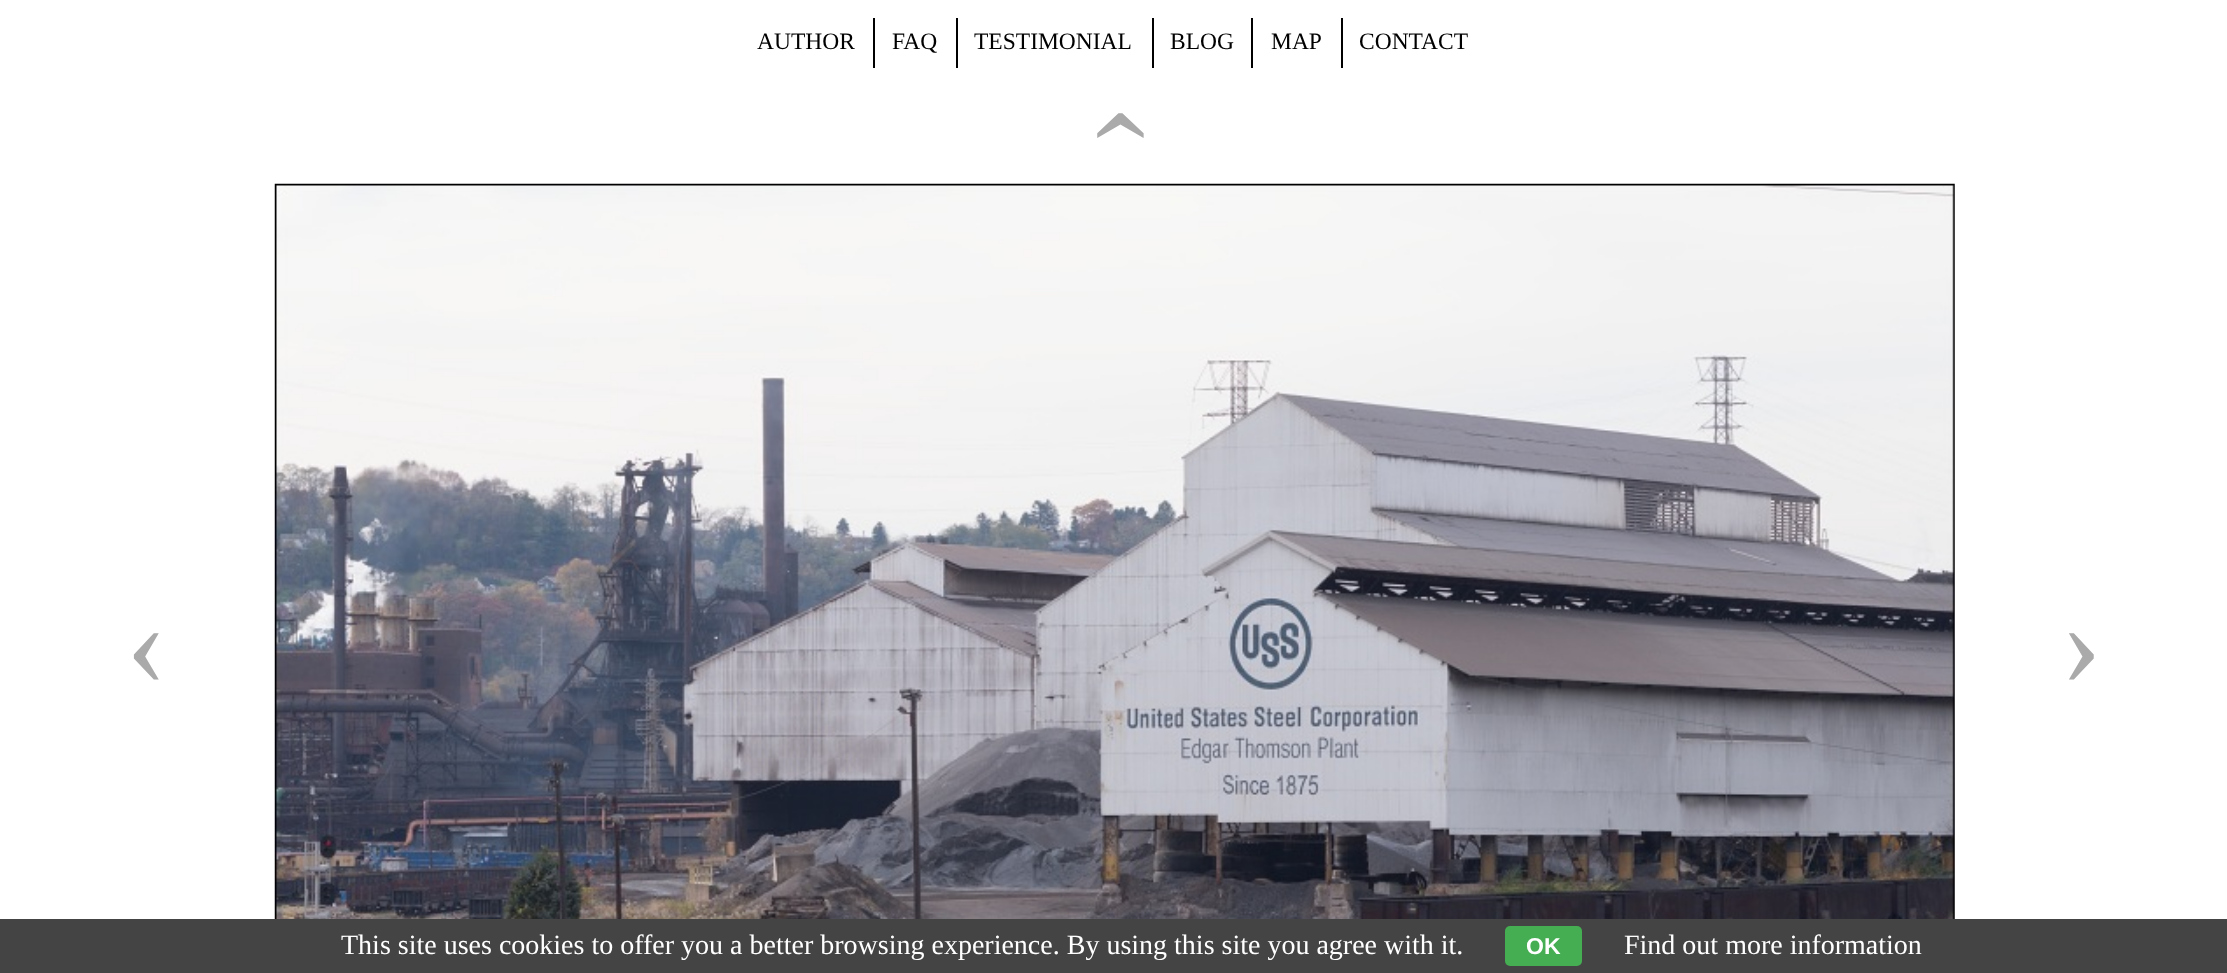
<!DOCTYPE html>
<meta charset="utf-8">
<style>body { margin: 0 } canvas { display: block }</style>
<canvas id="canvas" width="2227" height="973"></canvas>
<img id="img1" src="img_01.png" hidden>
<script>
window.onload = function () {
	const canvas = document.getElementById("canvas");
	const ctx = canvas.getContext("2d");
	ctx.miterLimit = 4;
	ctx.fontKerning = "normal";
	function txt(s, x, y) {
		ctx.fillText(s, x, y);
	}
	function fill(x, y, w, h) {
		ctx.fillRect(x, y, w, h);
	}
	function round(x, y, w, h, r) {
		ctx.beginPath();
		ctx.roundRect(x, y, w, h, r);
		ctx.fill();
	}
	function img(id, x, y, w, h) {
		ctx.drawImage(document.getElementById(id), x, y, w, h);
	}

	ctx.fillStyle = "#FFFFFF";
	fill(0, 0, 2227, 973);
	ctx.fillStyle = "#000000";
	fill(873, 18, 2, 50);
	fill(956, 18, 2, 50);
	fill(1152, 18, 2, 50);
	fill(1251, 18, 2, 50);
	fill(1341, 18, 2, 50);
	img("img1", 274, 183, 1681, 736);
	ctx.fillStyle = "#444444";
	fill(0, 919, 2227, 54);
	ctx.fillStyle = "#45AE52";
	round(1505, 926, 77, 40, 5);
	ctx.font = "23.5px Liberation Serif";
	ctx.fillStyle = "#000000";
	txt("AUTHOR", 757, 49);
	txt("FAQ", 892, 49);
	txt("TESTIMONIAL", 974, 49);
	txt("BLOG", 1170, 49);
	txt("MAP", 1271, 49);
	txt("CONTACT", 1359, 49);
	ctx.font = "122px Liberation Serif";
	ctx.fillStyle = "#AAAAAA";
	ctx.save();
	ctx.translate(1148, 146);
	ctx.rotate(-90 * Math.PI / 180);
	ctx.fillText("›", 0, 0);
	ctx.restore();
	txt("‹", 126, 684);
	txt("›", 2061, 684);
	ctx.font = "28px Liberation Serif";
	ctx.fillStyle = "#FFFFFF";
	txt("This site uses cookies to offer you a better browsing experience. By using this site you agree with it.", 341, 954);
	ctx.font = "bold 23px Liberation Sans";
	txt("OK", 1526, 954);
	ctx.font = "28px Liberation Serif";
	txt("Find out more information", 1624, 954);
};
</script>
